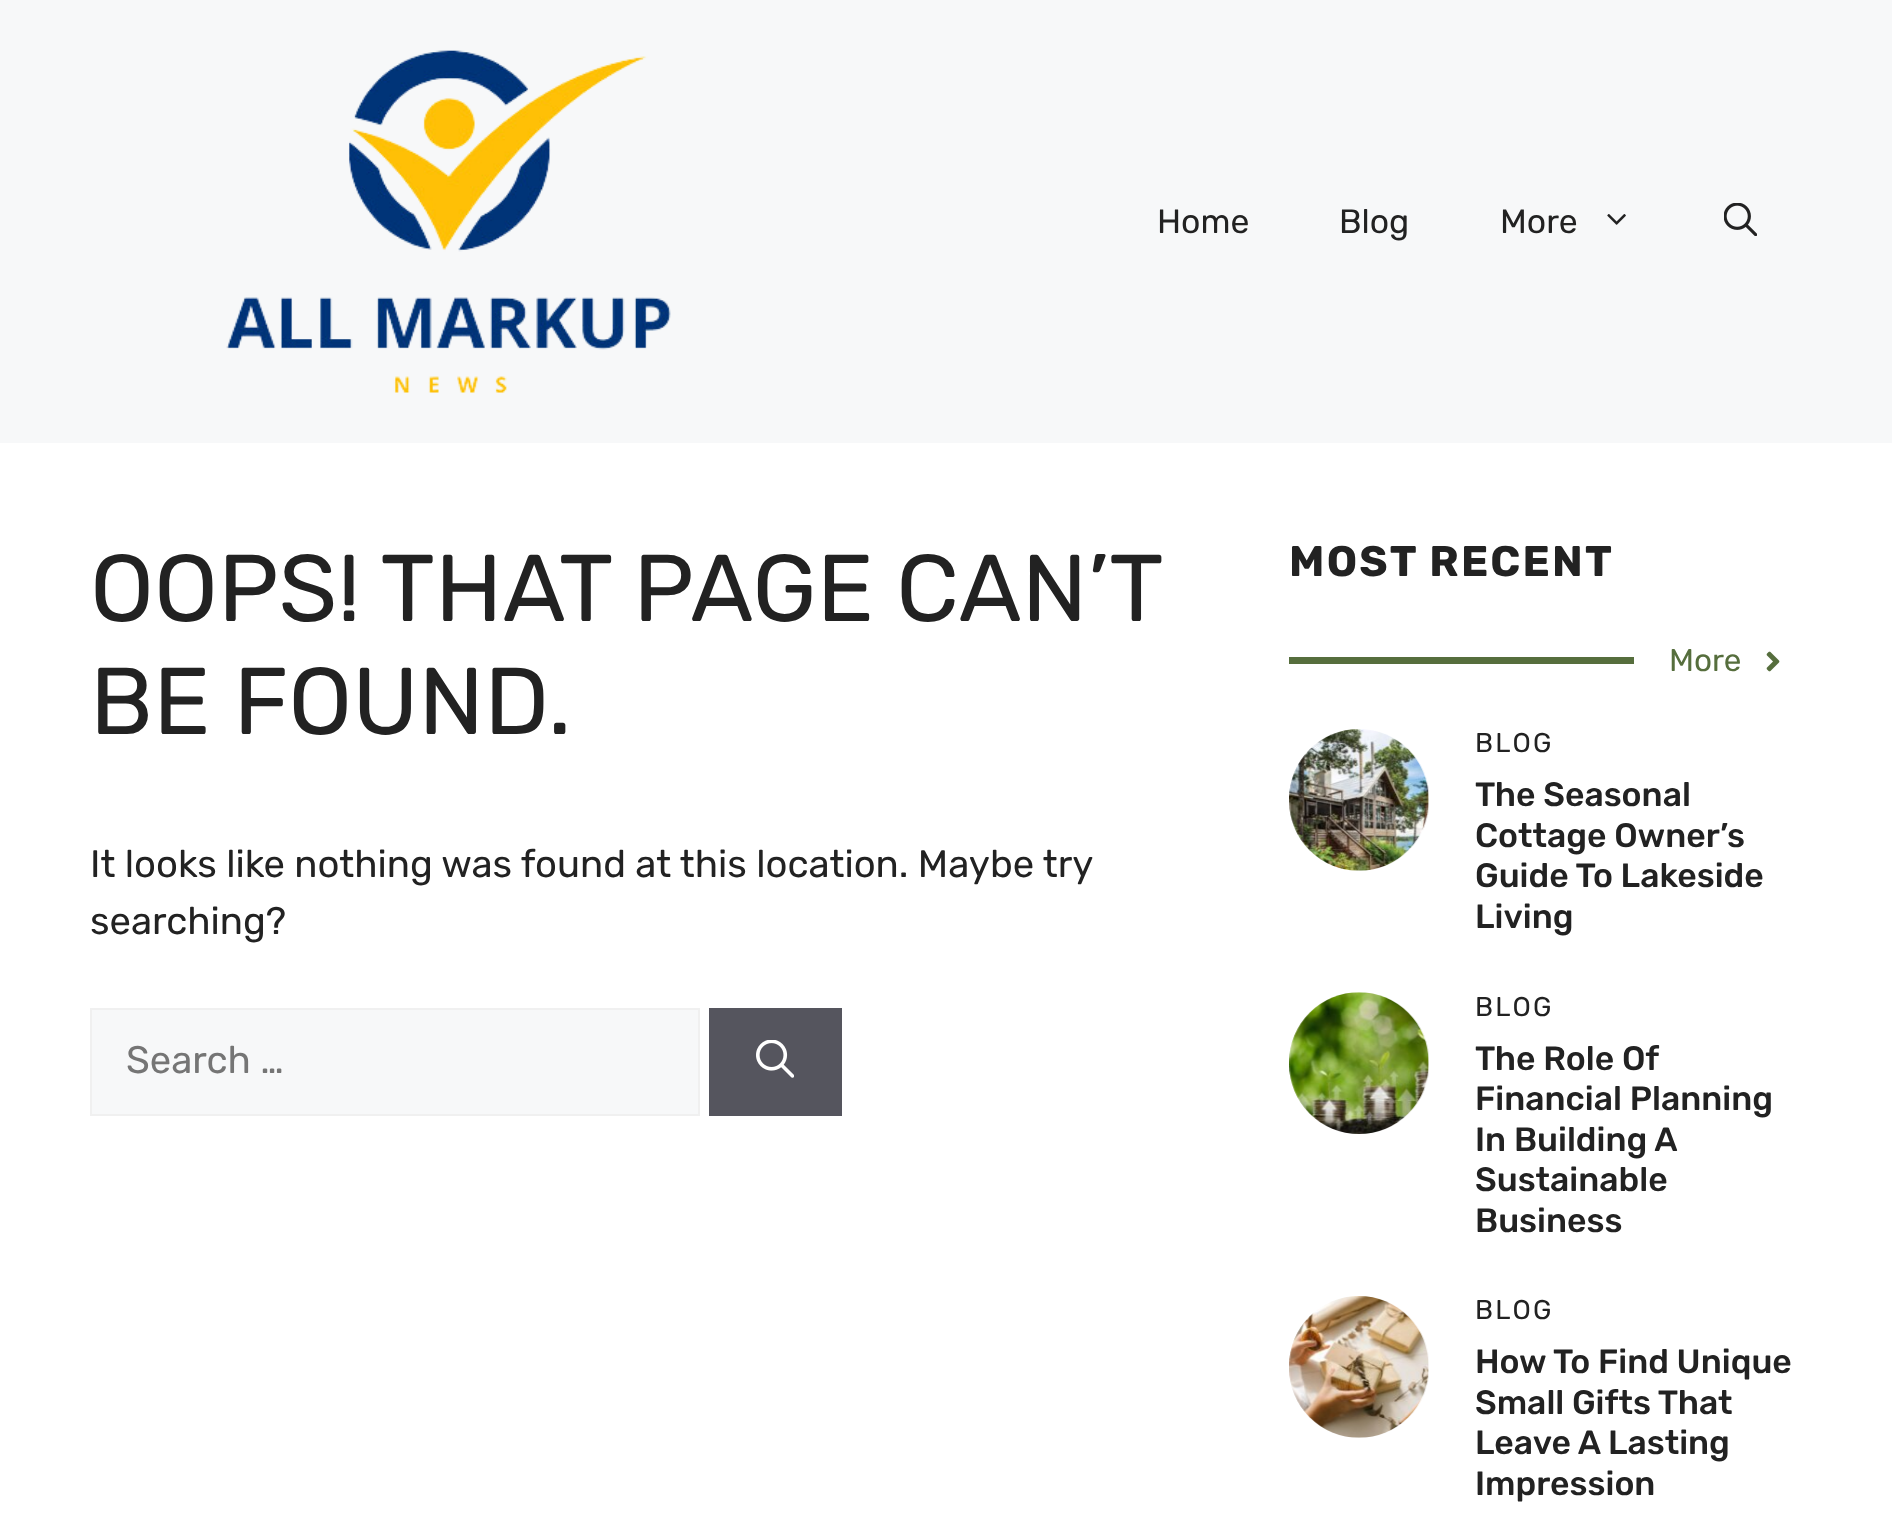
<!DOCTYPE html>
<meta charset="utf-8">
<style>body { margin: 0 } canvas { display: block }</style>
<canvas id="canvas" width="1892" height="1538"></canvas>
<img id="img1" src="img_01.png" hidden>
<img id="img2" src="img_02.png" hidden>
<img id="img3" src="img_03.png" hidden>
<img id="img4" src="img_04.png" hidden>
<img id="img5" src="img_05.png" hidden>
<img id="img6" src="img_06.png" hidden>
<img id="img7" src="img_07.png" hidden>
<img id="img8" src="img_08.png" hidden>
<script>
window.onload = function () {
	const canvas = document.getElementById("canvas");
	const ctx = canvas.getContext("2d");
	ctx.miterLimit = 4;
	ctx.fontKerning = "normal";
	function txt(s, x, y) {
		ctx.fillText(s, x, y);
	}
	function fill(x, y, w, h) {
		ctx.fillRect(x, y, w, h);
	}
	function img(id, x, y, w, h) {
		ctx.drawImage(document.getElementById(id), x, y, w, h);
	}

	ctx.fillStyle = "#FFFFFF";
	fill(0, 0, 1892, 1538);
	ctx.fillStyle = "#F7F8F9";
	fill(0, 0, 1892, 443);
	img("img1", 226, 50, 445, 343);
	img("img2", 1607, 214, 19, 11);
	img("img3", 1724, 203, 33, 33);
	ctx.beginPath();
	ctx.rect(91, 1009, 608, 106);
	ctx.fill();
	ctx.strokeStyle = "#F0F0F0";
	ctx.lineWidth = 2;
	ctx.stroke();
	ctx.fillStyle = "#55555E";
	fill(709, 1008, 133, 108);
	img("img4", 756, 1040, 38, 38);
	ctx.fillStyle = "#566E3D";
	fill(1289, 657, 345, 7);
	img("img5", 1766, 651, 14, 21);
	img("img6", 1289, 729, 140, 142);
	img("img7", 1289, 992, 140, 142);
	img("img8", 1289, 1296, 140, 142);
	ctx.font = "33.75px Rubik";
	ctx.fillStyle = "#222222";
	txt("Home", 1157, 233);
	txt("Blog", 1339, 233);
	txt("More", 1500, 233);
	ctx.wordSpacing = "-1px";
	ctx.font = "94.5px Rubik";
	txt("OOPS! THAT PAGE CAN’T", 90, 621);
	ctx.wordSpacing = "0px";
	txt("BE FOUND.", 90, 734);
	ctx.font = "38.25px Rubik";
	txt("It looks like nothing was found at this location. Maybe try", 90, 877);
	txt("searching?", 90, 934);
	ctx.fillStyle = "#757575";
	txt("Search …", 126, 1073);
	ctx.letterSpacing = "2.25px";
	ctx.font = "bold 42.75px Rubik";
	ctx.fillStyle = "#222222";
	txt("MOST RECENT", 1289, 576);
	ctx.letterSpacing = "0px";
	ctx.font = "31.5px Rubik";
	ctx.fillStyle = "#566E3D";
	txt("More", 1669, 671);
	ctx.letterSpacing = "2.25px";
	ctx.font = "27px Rubik";
	ctx.fillStyle = "#222222";
	txt("BLOG", 1475, 752);
	ctx.letterSpacing = "0px";
	ctx.font = "500 33.75px Rubik";
	txt("The Seasonal", 1475, 806);
	txt("Cottage Owner’s", 1475, 847);
	txt("Guide To Lakeside", 1475, 887);
	txt("Living", 1475, 928);
	ctx.letterSpacing = "2.25px";
	ctx.font = "27px Rubik";
	txt("BLOG", 1475, 1016);
	ctx.letterSpacing = "0px";
	ctx.font = "500 33.75px Rubik";
	txt("The Role Of", 1475, 1070);
	txt("Financial Planning", 1475, 1110);
	txt("In Building A", 1475, 1151);
	txt("Sustainable", 1475, 1191);
	txt("Business", 1475, 1232);
	ctx.letterSpacing = "2.25px";
	ctx.font = "27px Rubik";
	txt("BLOG", 1475, 1319);
	ctx.letterSpacing = "0px";
	ctx.font = "500 33.75px Rubik";
	txt("How To Find Unique", 1475, 1373);
	txt("Small Gifts That", 1475, 1414);
	txt("Leave A Lasting", 1475, 1454);
	txt("Impression", 1475, 1495);
};
</script>
